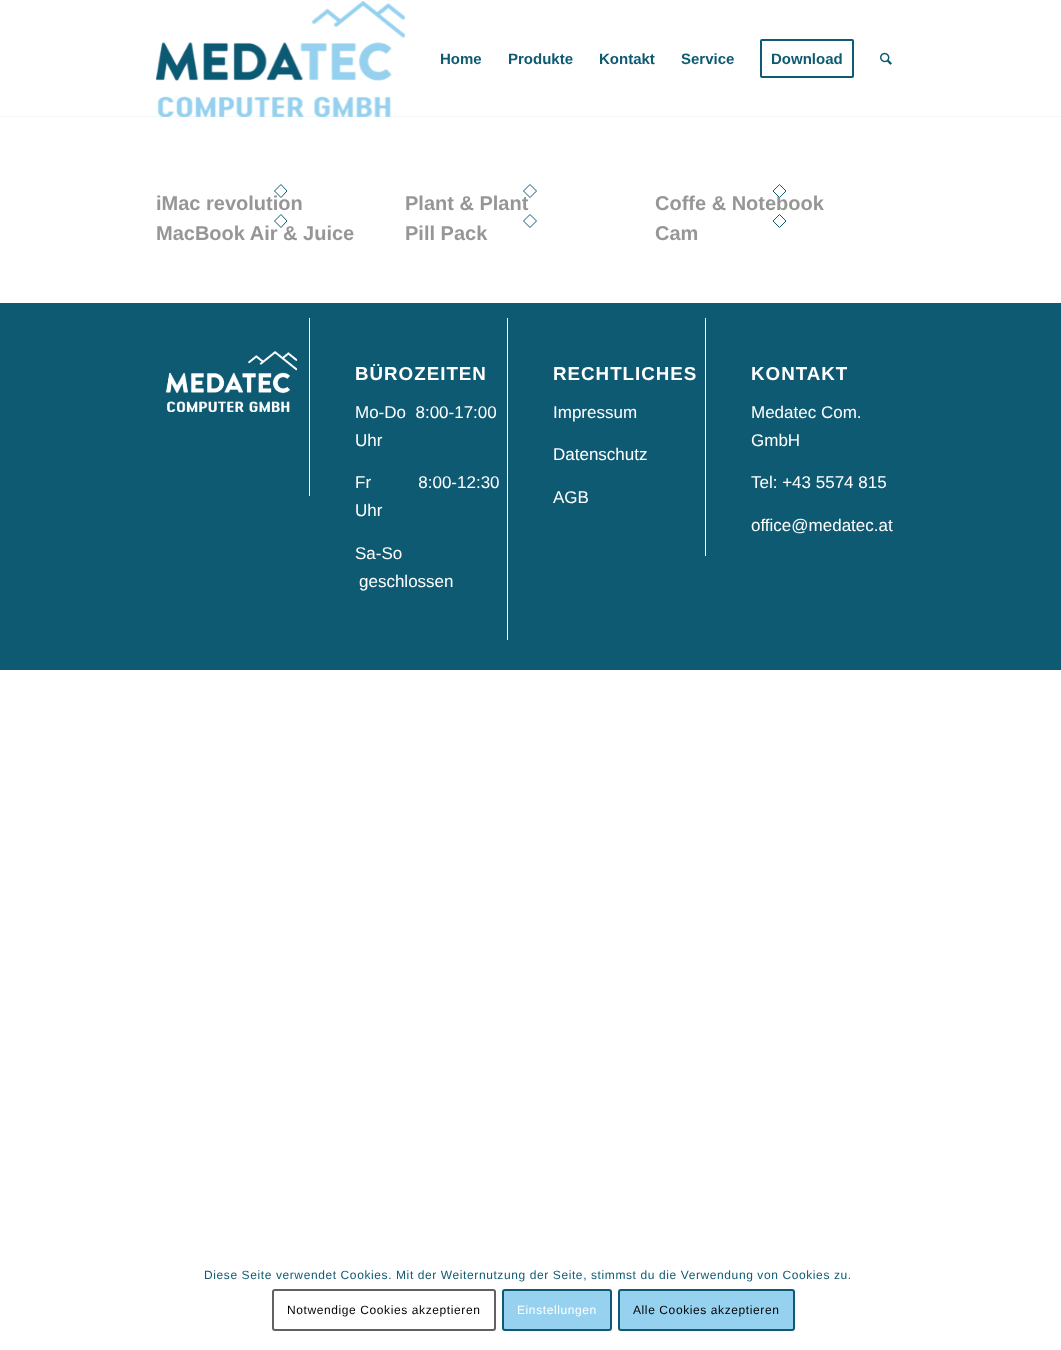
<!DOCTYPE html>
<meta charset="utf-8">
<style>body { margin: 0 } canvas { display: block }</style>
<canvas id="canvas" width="1061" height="1350"></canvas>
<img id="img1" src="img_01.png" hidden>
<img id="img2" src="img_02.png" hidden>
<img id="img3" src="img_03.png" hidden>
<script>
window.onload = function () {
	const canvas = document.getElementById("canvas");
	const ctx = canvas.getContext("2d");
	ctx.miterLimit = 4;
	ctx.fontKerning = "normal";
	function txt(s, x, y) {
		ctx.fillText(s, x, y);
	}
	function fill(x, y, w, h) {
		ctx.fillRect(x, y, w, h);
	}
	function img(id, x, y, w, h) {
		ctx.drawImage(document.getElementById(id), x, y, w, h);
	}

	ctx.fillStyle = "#FFFFFF";
	fill(0, 0, 1061, 1350);
	ctx.fillStyle = "#F3F7F8";
	fill(0, 116, 1061, 1);
	img("img1", 156, 1, 249, 116);
	ctx.beginPath();
	ctx.roundRect(761, 40, 92, 37, 1);
	ctx.strokeStyle = "#0F5A73";
	ctx.lineWidth = 2;
	ctx.stroke();
	img("img2", 880, 52, 12, 13);
	ctx.beginPath();
	ctx.moveTo(530, 214.5);
	ctx.lineTo(536.5, 221);
	ctx.lineTo(530, 227.5);
	ctx.lineTo(523.5, 221);
	ctx.closePath();
	ctx.lineWidth = 1;
	ctx.stroke();
	ctx.beginPath();
	ctx.moveTo(779.5, 214.5);
	ctx.lineTo(786, 221);
	ctx.lineTo(779.5, 227.5);
	ctx.lineTo(773, 221);
	ctx.closePath();
	ctx.stroke();
	ctx.fillStyle = "#0F5A73";
	fill(0, 303, 1061, 367);
	ctx.fillStyle = "#FFFFFF";
	fill(309, 318, 1, 178);
	img("img3", 165, 351, 133, 61);
	fill(507, 318, 1, 322);
	fill(705, 318, 1, 238);
	ctx.beginPath();
	ctx.roundRect(273, 1290, 222, 40, 2);
	ctx.strokeStyle = "#616161";
	ctx.lineWidth = 2;
	ctx.stroke();
	ctx.fillStyle = "#96D2F0";
	ctx.beginPath();
	ctx.roundRect(503, 1290, 108, 40, 2);
	ctx.fill();
	ctx.strokeStyle = "#0F5A73";
	ctx.stroke();
	ctx.beginPath();
	ctx.roundRect(619, 1290, 175, 40, 2);
	ctx.fill();
	ctx.stroke();
	ctx.font = "bold 15px Liberation Sans";
	ctx.fillStyle = "#0F5A73";
	txt("Home", 440, 64);
	txt("Produkte", 508, 64);
	txt("Kontakt", 599, 64);
	txt("Service", 681, 64);
	txt("Download", 771, 64);
	ctx.font = "bold 20px Liberation Sans";
	ctx.fillStyle = "#969696";
	txt("iMac revolution", 156, 210);
	ctx.beginPath();
	ctx.moveTo(281, 184.5);
	ctx.lineTo(287, 191);
	ctx.lineTo(281, 197.5);
	ctx.lineTo(274.5, 191);
	ctx.closePath();
	ctx.lineWidth = 1;
	ctx.stroke();
	txt("Plant & Plant", 405, 210);
	ctx.beginPath();
	ctx.moveTo(530, 184.5);
	ctx.lineTo(536.5, 191);
	ctx.lineTo(530, 197.5);
	ctx.lineTo(523.5, 191);
	ctx.closePath();
	ctx.stroke();
	txt("Coffe & Notebook", 655, 210);
	ctx.fillStyle = "#FFFFFF";
	ctx.beginPath();
	ctx.moveTo(779.5, 184);
	ctx.lineTo(786.5, 191);
	ctx.lineTo(779.5, 198);
	ctx.lineTo(772.5, 191);
	ctx.closePath();
	ctx.fill();
	ctx.beginPath();
	ctx.moveTo(779.5, 184.5);
	ctx.lineTo(786, 191);
	ctx.lineTo(779.5, 197.5);
	ctx.lineTo(773, 191);
	ctx.closePath();
	ctx.stroke();
	ctx.fillStyle = "#969696";
	txt("MacBook Air & Juice", 156, 240);
	ctx.beginPath();
	ctx.moveTo(281, 214.5);
	ctx.lineTo(287, 221);
	ctx.lineTo(281, 227.5);
	ctx.lineTo(274.5, 221);
	ctx.closePath();
	ctx.stroke();
	txt("Pill Pack", 405, 240);
	txt("Cam", 655, 240);
	ctx.letterSpacing = "1px";
	ctx.font = "bold 18.75px Liberation Sans";
	ctx.fillStyle = "#FFFFFF";
	txt("BÜROZEITEN", 355, 380);
	ctx.letterSpacing = "0px";
	ctx.font = "17px Liberation Sans";
	txt("Mo-Do  8:00-17:00", 355, 418);
	txt("Uhr", 355, 446);
	txt("Fr          8:00-12:30", 355, 488);
	txt("Uhr", 355, 516);
	txt("Sa-So", 355, 559);
	txt("geschlossen", 359, 587);
	ctx.letterSpacing = "1px";
	ctx.font = "bold 18.75px Liberation Sans";
	txt("RECHTLICHES", 553, 380);
	ctx.letterSpacing = "0px";
	ctx.font = "17px Liberation Sans";
	txt("Impressum", 553, 418);
	txt("Datenschutz", 553, 460);
	txt("AGB", 553, 503);
	ctx.letterSpacing = "1px";
	ctx.font = "bold 18.75px Liberation Sans";
	txt("KONTAKT", 751, 380);
	ctx.letterSpacing = "0px";
	ctx.font = "17px Liberation Sans";
	txt("Medatec Com.", 751, 418);
	txt("GmbH", 751, 446);
	txt("Tel: +43 5574 815", 751, 488);
	txt("office@medatec.at", 751, 531);
	ctx.letterSpacing = "0.6px";
	ctx.font = "12px Liberation Sans";
	ctx.fillStyle = "#0F5A73";
	txt("Diese Seite verwendet Cookies. Mit der Weiternutzung der Seite, stimmst du die Verwendung von Cookies zu.", 204, 1279);
	ctx.fillStyle = "#000000";
	txt("Notwendige Cookies akzeptieren", 287, 1314);
	ctx.fillStyle = "#FFFFFF";
	txt("Einstellungen", 517, 1314);
	ctx.fillStyle = "#000000";
	txt("Alle Cookies akzeptieren", 633, 1314);
};
</script>
